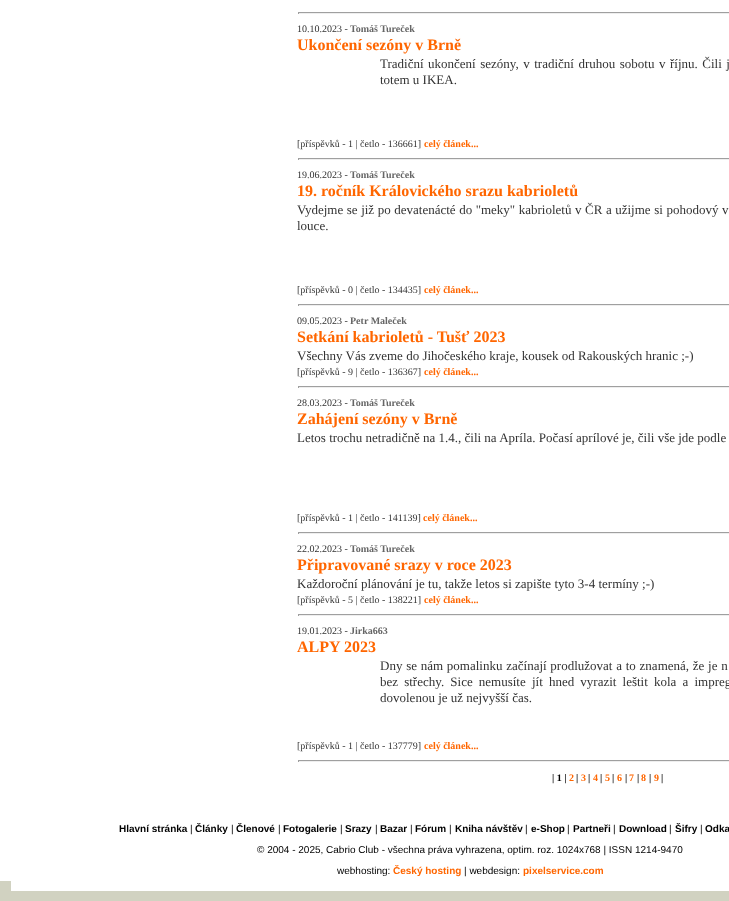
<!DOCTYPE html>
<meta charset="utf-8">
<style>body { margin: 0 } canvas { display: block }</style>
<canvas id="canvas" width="729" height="901"></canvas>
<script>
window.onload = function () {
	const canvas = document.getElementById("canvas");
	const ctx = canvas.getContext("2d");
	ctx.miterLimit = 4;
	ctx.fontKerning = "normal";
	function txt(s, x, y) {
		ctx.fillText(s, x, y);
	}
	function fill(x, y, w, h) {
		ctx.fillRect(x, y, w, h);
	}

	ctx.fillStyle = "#D1D2C1";
	fill(0, 0, 729, 901);
	ctx.fillStyle = "#FFFFFF";
	fill(0, 0, 729, 818);
	ctx.fillStyle = "#9F9F9F";
	fill(298, 12, 431, 1);
	ctx.fillStyle = "#EEEEEE";
	fill(298, 13, 431, 1);
	ctx.fillStyle = "#9F9F9F";
	fill(298, 12, 1, 2);
	fill(298, 158, 431, 1);
	ctx.fillStyle = "#EEEEEE";
	fill(298, 159, 431, 1);
	ctx.fillStyle = "#9F9F9F";
	fill(298, 158, 1, 2);
	fill(298, 304, 431, 1);
	ctx.fillStyle = "#EEEEEE";
	fill(298, 305, 431, 1);
	ctx.fillStyle = "#9F9F9F";
	fill(298, 304, 1, 2);
	fill(298, 386, 431, 1);
	ctx.fillStyle = "#EEEEEE";
	fill(298, 387, 431, 1);
	ctx.fillStyle = "#9F9F9F";
	fill(298, 386, 1, 2);
	fill(298, 532, 431, 1);
	ctx.fillStyle = "#EEEEEE";
	fill(298, 533, 431, 1);
	ctx.fillStyle = "#9F9F9F";
	fill(298, 532, 1, 2);
	fill(298, 614, 431, 1);
	ctx.fillStyle = "#EEEEEE";
	fill(298, 615, 431, 1);
	ctx.fillStyle = "#9F9F9F";
	fill(298, 614, 1, 2);
	fill(298, 760, 431, 1);
	ctx.fillStyle = "#EEEEEE";
	fill(298, 761, 431, 1);
	ctx.fillStyle = "#9F9F9F";
	fill(298, 760, 1, 2);
	ctx.fillStyle = "#FFFFFF";
	fill(0, 818, 729, 63);
	fill(11, 881, 718, 10);
	ctx.font = "10px Liberation Serif";
	ctx.fillStyle = "#333333";
	txt("10.10.2023 -", 297, 32);
	ctx.font = "bold 10px Liberation Serif";
	ctx.fillStyle = "#666666";
	txt("Tomáš Tureček", 350, 32);
	ctx.font = "bold 16px Liberation Serif";
	ctx.fillStyle = "#FF6600";
	txt("Ukončení sezóny v Brně", 297, 50);
	ctx.wordSpacing = "1.25px";
	ctx.font = "13px Liberation Serif";
	ctx.fillStyle = "#333333";
	txt("Tradiční ukončení sezóny, v tradiční druhou sobotu v říjnu. Čili j", 380, 68);
	ctx.wordSpacing = "0px";
	txt("totem u IKEA.", 380, 84);
	ctx.font = "10px Liberation Serif";
	txt("[příspěvků - 1 | četlo - 136661]", 297, 147);
	ctx.font = "bold 10px Liberation Serif";
	ctx.fillStyle = "#FF6600";
	txt("celý článek...", 424, 147);
	ctx.font = "10px Liberation Serif";
	ctx.fillStyle = "#333333";
	txt("19.06.2023 -", 297, 178);
	ctx.font = "bold 10px Liberation Serif";
	ctx.fillStyle = "#666666";
	txt("Tomáš Tureček", 350, 178);
	ctx.font = "bold 16px Liberation Serif";
	ctx.fillStyle = "#FF6600";
	txt("19. ročník Královického srazu kabrioletů", 297, 196);
	ctx.wordSpacing = "0.3px";
	ctx.font = "13px Liberation Serif";
	ctx.fillStyle = "#333333";
	txt("Vydejme se již po devatenácté do \"meky\" kabrioletů v ČR a užijme si pohodový v", 297, 214);
	ctx.wordSpacing = "0px";
	txt("louce.", 297, 230);
	ctx.font = "10px Liberation Serif";
	txt("[příspěvků - 0 | četlo - 134435]", 297, 293);
	ctx.font = "bold 10px Liberation Serif";
	ctx.fillStyle = "#FF6600";
	txt("celý článek...", 424, 293);
	ctx.font = "10px Liberation Serif";
	ctx.fillStyle = "#333333";
	txt("09.05.2023 -", 297, 324);
	ctx.font = "bold 10px Liberation Serif";
	ctx.fillStyle = "#666666";
	txt("Petr Maleček", 350, 324);
	ctx.font = "bold 16px Liberation Serif";
	ctx.fillStyle = "#FF6600";
	txt("Setkání kabrioletů - Tušť 2023", 297, 342);
	ctx.font = "13px Liberation Serif";
	ctx.fillStyle = "#333333";
	txt("Všechny Vás zveme do Jihočeského kraje, kousek od Rakouských hranic ;-)", 297, 360);
	ctx.font = "10px Liberation Serif";
	txt("[příspěvků - 9 | četlo - 136367]", 297, 375);
	ctx.font = "bold 10px Liberation Serif";
	ctx.fillStyle = "#FF6600";
	txt("celý článek...", 424, 375);
	ctx.font = "10px Liberation Serif";
	ctx.fillStyle = "#333333";
	txt("28.03.2023 -", 297, 406);
	ctx.font = "bold 10px Liberation Serif";
	ctx.fillStyle = "#666666";
	txt("Tomáš Tureček", 350, 406);
	ctx.font = "bold 16px Liberation Serif";
	ctx.fillStyle = "#FF6600";
	txt("Zahájení sezóny v Brně", 297, 424);
	ctx.font = "13px Liberation Serif";
	ctx.fillStyle = "#333333";
	txt("Letos trochu netradičně na 1.4., čili na Apríla. Počasí aprílové je, čili vše jde podle", 297, 442);
	ctx.font = "10px Liberation Serif";
	txt("[příspěvků - 1 | četlo - 141139]", 297, 521);
	ctx.font = "bold 10px Liberation Serif";
	ctx.fillStyle = "#FF6600";
	txt("celý článek...", 423, 521);
	ctx.font = "10px Liberation Serif";
	ctx.fillStyle = "#333333";
	txt("22.02.2023 -", 297, 552);
	ctx.font = "bold 10px Liberation Serif";
	ctx.fillStyle = "#666666";
	txt("Tomáš Tureček", 350, 552);
	ctx.font = "bold 16px Liberation Serif";
	ctx.fillStyle = "#FF6600";
	txt("Připravované srazy v roce 2023", 297, 570);
	ctx.font = "13px Liberation Serif";
	ctx.fillStyle = "#333333";
	txt("Každoroční plánování je tu, takže letos si zapište tyto 3-4 termíny ;-)", 297, 588);
	ctx.font = "10px Liberation Serif";
	txt("[příspěvků - 5 | četlo - 138221]", 297, 603);
	ctx.font = "bold 10px Liberation Serif";
	ctx.fillStyle = "#FF6600";
	txt("celý článek...", 424, 603);
	ctx.font = "10px Liberation Serif";
	ctx.fillStyle = "#333333";
	txt("19.01.2023 -", 297, 634);
	ctx.font = "bold 10px Liberation Serif";
	ctx.fillStyle = "#666666";
	txt("Jirka663", 350, 634);
	ctx.font = "bold 16px Liberation Serif";
	ctx.fillStyle = "#FF6600";
	txt("ALPY 2023", 297, 652);
	ctx.wordSpacing = "0.5px";
	ctx.font = "13px Liberation Serif";
	ctx.fillStyle = "#333333";
	txt("Dny se nám pomalinku začínají prodlužovat a to znamená, že je n", 380, 670);
	ctx.wordSpacing = "2.9px";
	txt("bez střechy. Sice nemusíte jít hned vyrazit leštit kola a impreg", 380, 686);
	ctx.wordSpacing = "0px";
	txt("dovolenou je už nejvyšší čas.", 380, 702);
	ctx.font = "10px Liberation Serif";
	txt("[příspěvků - 1 | četlo - 137779]", 297, 749);
	ctx.font = "bold 10px Liberation Serif";
	ctx.fillStyle = "#FF6600";
	txt("celý článek...", 424, 749);
	ctx.fillStyle = "#000000";
	txt("| 1 |", 552, 781);
	ctx.fillStyle = "#FF6600";
	txt("2", 569, 781);
	ctx.fillStyle = "#000000";
	txt("|", 576, 781);
	ctx.fillStyle = "#FF6600";
	txt("3", 581, 781);
	ctx.fillStyle = "#000000";
	txt("|", 588, 781);
	ctx.fillStyle = "#FF6600";
	txt("4", 593, 781);
	ctx.fillStyle = "#000000";
	txt("|", 600, 781);
	ctx.fillStyle = "#FF6600";
	txt("5", 605, 781);
	ctx.fillStyle = "#000000";
	txt("|", 612, 781);
	ctx.fillStyle = "#FF6600";
	txt("6", 617, 781);
	ctx.fillStyle = "#000000";
	txt("|", 625, 781);
	ctx.fillStyle = "#FF6600";
	txt("7", 629, 781);
	ctx.fillStyle = "#000000";
	txt("|", 637, 781);
	ctx.fillStyle = "#FF6600";
	txt("8", 641, 781);
	ctx.fillStyle = "#000000";
	txt("|", 649, 781);
	ctx.fillStyle = "#FF6600";
	txt("9", 654, 781);
	ctx.fillStyle = "#000000";
	txt("|", 661, 781);
	ctx.font = "bold 10px Liberation Sans";
	txt("Hlavní stránka", 119, 832);
	ctx.font = "10px Liberation Sans";
	txt("|", 190, 832);
	ctx.font = "bold 10px Liberation Sans";
	txt("Články", 195, 832);
	ctx.font = "10px Liberation Sans";
	txt("|", 231, 832);
	ctx.font = "bold 10px Liberation Sans";
	txt("Členové", 236, 832);
	ctx.font = "10px Liberation Sans";
	txt("|", 278, 832);
	ctx.font = "bold 10px Liberation Sans";
	txt("Fotogalerie", 283, 832);
	ctx.font = "10px Liberation Sans";
	txt("|", 340, 832);
	ctx.font = "bold 10px Liberation Sans";
	txt("Srazy", 345, 832);
	ctx.font = "10px Liberation Sans";
	txt("|", 375, 832);
	ctx.font = "bold 10px Liberation Sans";
	txt("Bazar", 380, 832);
	ctx.font = "10px Liberation Sans";
	txt("|", 410, 832);
	ctx.font = "bold 10px Liberation Sans";
	txt("Fórum", 415, 832);
	ctx.font = "10px Liberation Sans";
	txt("|", 449, 832);
	ctx.font = "bold 10px Liberation Sans";
	txt("Kniha návštěv", 455, 832);
	ctx.font = "10px Liberation Sans";
	txt("|", 525, 832);
	ctx.font = "bold 10px Liberation Sans";
	txt("e-Shop", 531, 832);
	ctx.font = "10px Liberation Sans";
	txt("|", 567, 832);
	ctx.font = "bold 10px Liberation Sans";
	txt("Partneři", 573, 832);
	ctx.font = "10px Liberation Sans";
	txt("|", 613, 832);
	ctx.font = "bold 10px Liberation Sans";
	txt("Download", 619, 832);
	ctx.font = "10px Liberation Sans";
	txt("|", 669, 832);
	ctx.font = "bold 10px Liberation Sans";
	txt("Šifry", 675, 832);
	ctx.font = "10px Liberation Sans";
	txt("|", 700, 832);
	ctx.font = "bold 10px Liberation Sans";
	txt("Odka", 705, 832);
	ctx.font = "10px Liberation Sans";
	txt("© 2004 - 2025, Cabrio Club - všechna práva vyhrazena, optim. roz. 1024x768 | ISSN 1214-9470", 257, 853);
	txt("webhosting:", 337, 874);
	ctx.font = "bold 10px Liberation Sans";
	ctx.fillStyle = "#FF6600";
	txt("Český hosting", 393, 874);
	ctx.font = "10px Liberation Sans";
	ctx.fillStyle = "#000000";
	txt("| webdesign:", 464, 874);
	ctx.font = "bold 10px Liberation Sans";
	ctx.fillStyle = "#FF6600";
	txt("pixelservice.com", 523, 874);
};
</script>
